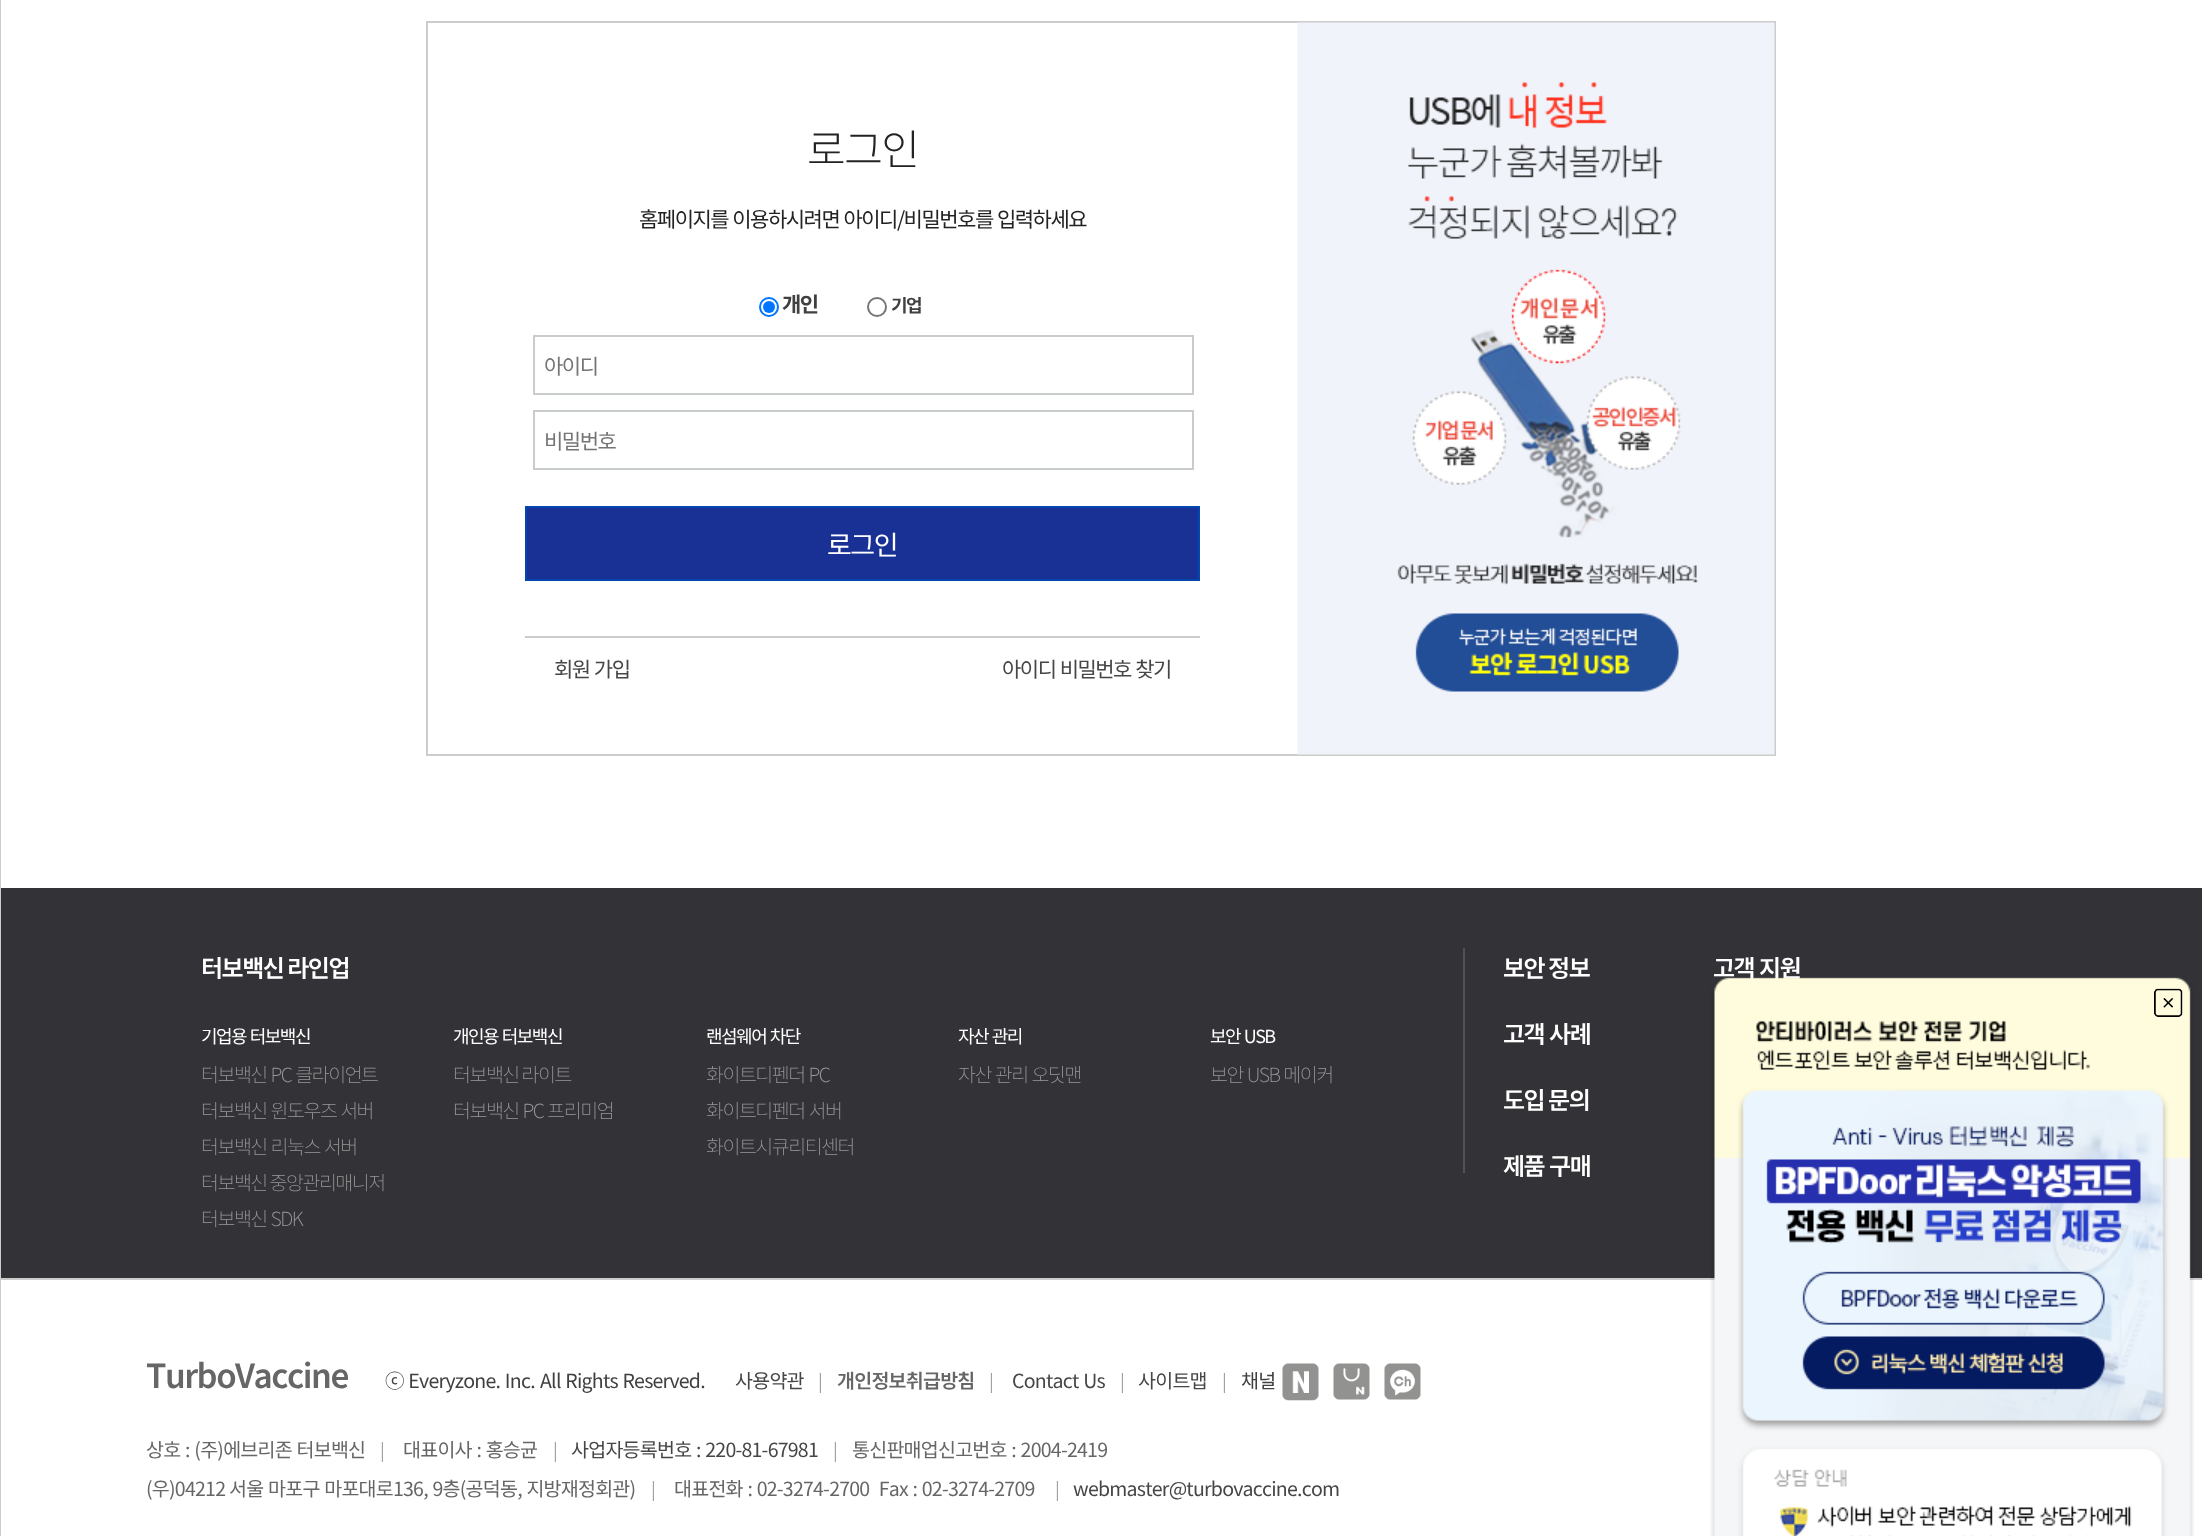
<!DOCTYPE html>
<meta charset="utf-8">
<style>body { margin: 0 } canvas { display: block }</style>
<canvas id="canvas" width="2202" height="1536"></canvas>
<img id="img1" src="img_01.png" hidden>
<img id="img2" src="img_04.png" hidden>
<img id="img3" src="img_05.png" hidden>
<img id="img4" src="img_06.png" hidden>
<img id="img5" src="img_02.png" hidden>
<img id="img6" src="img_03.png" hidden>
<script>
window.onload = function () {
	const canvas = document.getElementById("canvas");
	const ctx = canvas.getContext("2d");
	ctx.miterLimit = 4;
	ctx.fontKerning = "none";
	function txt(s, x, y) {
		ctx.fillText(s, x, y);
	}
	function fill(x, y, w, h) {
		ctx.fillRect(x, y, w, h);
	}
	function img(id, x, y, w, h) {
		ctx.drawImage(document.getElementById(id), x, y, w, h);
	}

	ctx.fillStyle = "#FFFFFF";
	fill(0, 0, 2202, 1536);
	ctx.fillStyle = "#CCCCCC";
	fill(0, 1278, 2202, 2);
	fill(0, 0, 1, 1536);
	ctx.strokeStyle = "#CCCCCC";
	ctx.lineWidth = 2;
	ctx.strokeRect(427, 22, 1348, 733);
	ctx.beginPath();
	ctx.arc(769, 307, 9, 0, Math.PI * 2);
	ctx.strokeStyle = "#0075FF";
	ctx.stroke();
	ctx.fillStyle = "#0075FF";
	ctx.beginPath();
	ctx.arc(769, 307, 6, 0, Math.PI * 2);
	ctx.fill();
	ctx.beginPath();
	ctx.arc(877, 307, 9, 0, Math.PI * 2);
	ctx.strokeStyle = "#767676";
	ctx.stroke();
	ctx.strokeStyle = "#C8CCCD";
	ctx.strokeRect(534, 336, 659, 58);
	ctx.strokeRect(534, 411, 659, 58);
	ctx.fillStyle = "#193194";
	ctx.beginPath();
	ctx.rect(526, 507, 673, 73);
	ctx.fill();
	ctx.strokeStyle = "#0445AE";
	ctx.stroke();
	ctx.fillStyle = "#CCCCCC";
	fill(525, 636, 675, 2);
	img("img1", 1297, 22, 478, 733);
	ctx.fillStyle = "#333237";
	fill(1, 888, 2201, 390);
	ctx.fillStyle = "#535353";
	fill(1463, 948, 2, 225);
	img("img2", 1282, 1363, 37, 38);
	img("img3", 1333, 1363, 37, 37);
	img("img4", 1384, 1363, 37, 37);
	ctx.letterSpacing = "-1.5px";
	ctx.font = "300 42px Noto Sans KR";
	ctx.fillStyle = "#222222";
	txt("로그인", 807, 165);
	ctx.wordSpacing = "1px";
	ctx.font = "21px Noto Sans KR";
	txt("홈페이지를 이용하시려면 아이디/비밀번호를 입력하세요", 639, 227);
	ctx.wordSpacing = "0px";
	ctx.font = "bold 21px Noto Sans KR";
	ctx.fillStyle = "#404040";
	txt("개인", 782, 312);
	ctx.font = "bold 18px Noto Sans KR";
	txt("기업", 891, 312);
	ctx.font = "21px Noto Sans KR";
	ctx.fillStyle = "#757575";
	txt("아이디", 544, 374);
	txt("비밀번호", 544, 449);
	ctx.font = "27px Noto Sans KR";
	ctx.fillStyle = "#FFFFFF";
	txt("로그인", 827, 555);
	ctx.wordSpacing = "1px";
	ctx.font = "21px Noto Sans KR";
	ctx.fillStyle = "#464646";
	txt("회원 가입", 554, 677);
	txt("아이디 비밀번호 찾기", 1002, 677);
	ctx.wordSpacing = "0px";
	ctx.font = "600 24px Noto Sans KR";
	ctx.fillStyle = "#FFFFFF";
	txt("터보백신 라인업", 201, 977);
	ctx.wordSpacing = "1px";
	ctx.font = "18px Noto Sans KR";
	txt("기업용 터보백신", 201, 1043);
	ctx.font = "200 19.5px Noto Sans KR";
	ctx.fillStyle = "#999999";
	txt("터보백신 PC 클라이언트", 201, 1082);
	txt("터보백신 윈도우즈 서버", 201, 1118);
	txt("터보백신 리눅스 서버", 201, 1154);
	ctx.wordSpacing = "0px";
	txt("터보백신 중앙관리매니저", 201, 1190);
	ctx.wordSpacing = "1px";
	txt("터보백신 SDK", 201, 1226);
	ctx.wordSpacing = "0px";
	ctx.font = "600 24px Noto Sans KR";
	ctx.fillStyle = "#FFFFFF";
	txt("보안 정보", 1503, 977);
	ctx.wordSpacing = "1px";
	txt("고객 사례", 1503, 1043);
	ctx.wordSpacing = "0px";
	txt("도입 문의", 1503, 1109);
	ctx.wordSpacing = "1px";
	txt("제품 구매", 1503, 1175);
	txt("고객 지원", 1713, 977);
	ctx.font = "18px Noto Sans KR";
	txt("개인용 터보백신", 453, 1043);
	ctx.wordSpacing = "0px";
	ctx.font = "200 19.5px Noto Sans KR";
	ctx.fillStyle = "#999999";
	txt("터보백신 라이트", 453, 1082);
	ctx.wordSpacing = "1px";
	txt("터보백신 PC 프리미엄", 453, 1118);
	ctx.font = "18px Noto Sans KR";
	ctx.fillStyle = "#FFFFFF";
	txt("랜섬웨어 차단", 706, 1043);
	ctx.font = "200 19.5px Noto Sans KR";
	ctx.fillStyle = "#999999";
	txt("화이트디펜더 PC", 706, 1082);
	txt("화이트디펜더 서버", 706, 1118);
	ctx.wordSpacing = "0px";
	txt("화이트시큐리티센터", 706, 1154);
	ctx.wordSpacing = "1px";
	ctx.font = "18px Noto Sans KR";
	ctx.fillStyle = "#FFFFFF";
	txt("자산 관리", 958, 1043);
	ctx.font = "200 19.5px Noto Sans KR";
	ctx.fillStyle = "#999999";
	txt("자산 관리 오딧맨", 958, 1082);
	ctx.font = "18px Noto Sans KR";
	ctx.fillStyle = "#FFFFFF";
	txt("보안 USB", 1210, 1043);
	ctx.font = "200 19.5px Noto Sans KR";
	ctx.fillStyle = "#999999";
	txt("보안 USB 메이커", 1210, 1082);
	img("img5", 1710, 977, 484, 559);
	img("img6", 2154, 988, 29, 29);
	ctx.wordSpacing = "0px";
	ctx.font = "600 33px Noto Sans KR";
	ctx.fillStyle = "#666666";
	txt("TurboVaccine", 146, 1388);
	ctx.letterSpacing = "-0.75px";
	ctx.wordSpacing = "1px";
	ctx.font = "19.5px Noto Sans KR";
	ctx.fillStyle = "#404040";
	txt("ⓒ Everyzone. Inc.", 385, 1388);
	txt("All Rights Reserved.", 540, 1388);
	ctx.wordSpacing = "0px";
	ctx.fillStyle = "#464646";
	txt("사용약관", 735, 1388);
	ctx.letterSpacing = "-1.5px";
	ctx.font = "18px Noto Sans KR";
	ctx.fillStyle = "#A1A1A1";
	txt("|", 818, 1388);
	ctx.letterSpacing = "-0.75px";
	ctx.font = "600 19.5px Noto Sans KR";
	ctx.fillStyle = "#666666";
	txt("개인정보취급방침", 837, 1388);
	ctx.letterSpacing = "-1.5px";
	ctx.font = "18px Noto Sans KR";
	ctx.fillStyle = "#A1A1A1";
	txt("|", 989, 1388);
	ctx.letterSpacing = "-0.75px";
	ctx.wordSpacing = "1px";
	ctx.font = "19.5px Noto Sans KR";
	ctx.fillStyle = "#464646";
	txt("Contact Us", 1012, 1388);
	ctx.letterSpacing = "-1.5px";
	ctx.wordSpacing = "0px";
	ctx.font = "18px Noto Sans KR";
	ctx.fillStyle = "#A1A1A1";
	txt("|", 1120, 1388);
	ctx.letterSpacing = "-0.75px";
	ctx.font = "19.5px Noto Sans KR";
	ctx.fillStyle = "#464646";
	txt("사이트맵", 1138, 1388);
	ctx.letterSpacing = "-1.5px";
	ctx.font = "18px Noto Sans KR";
	ctx.fillStyle = "#A1A1A1";
	txt("|", 1222, 1388);
	ctx.letterSpacing = "-0.75px";
	ctx.font = "19.5px Noto Sans KR";
	ctx.fillStyle = "#404040";
	txt("채널", 1241, 1388);
	ctx.wordSpacing = "1px";
	ctx.fillStyle = "#666666";
	txt("상호 : (주)에브리존 터보백신", 146, 1457);
	ctx.letterSpacing = "-1.5px";
	ctx.wordSpacing = "0px";
	ctx.font = "18px Noto Sans KR";
	ctx.fillStyle = "#A1A1A1";
	txt("|", 380, 1457);
	ctx.letterSpacing = "-0.75px";
	ctx.wordSpacing = "1px";
	ctx.font = "19.5px Noto Sans KR";
	ctx.fillStyle = "#666666";
	txt("대표이사 : 홍승균", 403, 1457);
	ctx.letterSpacing = "-1.5px";
	ctx.wordSpacing = "0px";
	ctx.font = "18px Noto Sans KR";
	ctx.fillStyle = "#A1A1A1";
	txt("|", 553, 1457);
	ctx.letterSpacing = "-0.75px";
	ctx.wordSpacing = "1px";
	ctx.font = "19.5px Noto Sans KR";
	ctx.fillStyle = "#464646";
	txt("사업자등록번호 : 220-81-67981", 571, 1457);
	ctx.letterSpacing = "-1.5px";
	ctx.wordSpacing = "0px";
	ctx.font = "18px Noto Sans KR";
	ctx.fillStyle = "#A1A1A1";
	txt("|", 833, 1457);
	ctx.letterSpacing = "-0.75px";
	ctx.wordSpacing = "1px";
	ctx.font = "19.5px Noto Sans KR";
	ctx.fillStyle = "#666666";
	txt("통신판매업신고번호 : 2004-2419", 852, 1457);
	ctx.wordSpacing = "0px";
	txt("(우)04212", 146, 1496);
	ctx.wordSpacing = "1px";
	txt("서울 마포구 마포대로136, 9층(공덕동, 지방재정회관)", 229, 1496);
	ctx.letterSpacing = "-1.5px";
	ctx.wordSpacing = "0px";
	ctx.font = "18px Noto Sans KR";
	ctx.fillStyle = "#A1A1A1";
	txt("|", 651, 1496);
	ctx.letterSpacing = "-0.75px";
	ctx.wordSpacing = "1px";
	ctx.font = "19.5px Noto Sans KR";
	ctx.fillStyle = "#666666";
	txt("대표전화 : 02-3274-2700  Fax : 02-3274-2709", 674, 1496);
	ctx.letterSpacing = "-1.5px";
	ctx.wordSpacing = "0px";
	ctx.font = "18px Noto Sans KR";
	ctx.fillStyle = "#A1A1A1";
	txt("|", 1055, 1496);
	ctx.letterSpacing = "-0.75px";
	ctx.font = "19.5px Noto Sans KR";
	ctx.fillStyle = "#464646";
	txt("webmaster@turbovaccine.com", 1073, 1496);
};
</script>
